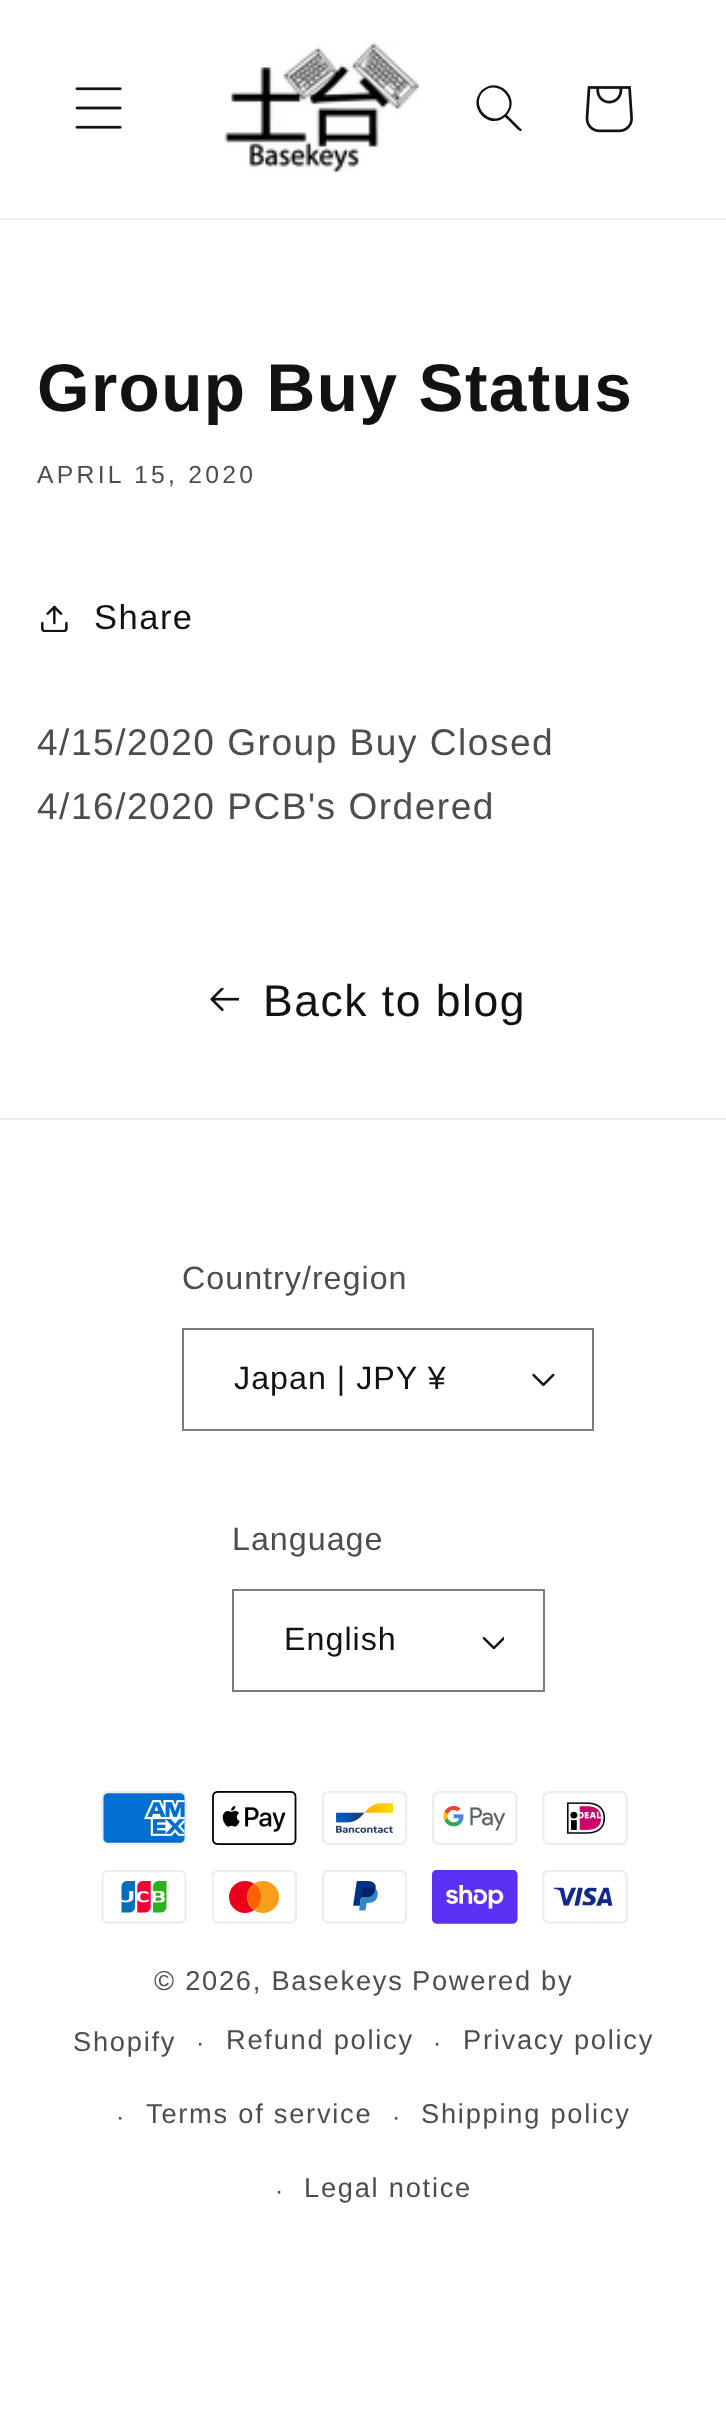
<!DOCTYPE html>
<meta charset="utf-8">
<style>body { margin: 0 } canvas { display: block }</style>
<canvas id="canvas" width="726" height="2420"></canvas>
<img id="img1" src="img_01.png" hidden>
<img id="img2" src="img_02.png" hidden>
<img id="img3" src="img_03.png" hidden>
<img id="img4" src="img_04.png" hidden>
<img id="img5" src="img_05.png" hidden>
<img id="img6" src="img_06.png" hidden>
<img id="img7" src="img_07.png" hidden>
<img id="img8" src="img_08.png" hidden>
<img id="img9" src="img_09.png" hidden>
<img id="img10" src="img_10.png" hidden>
<img id="img11" src="img_11.png" hidden>
<img id="img12" src="img_12.png" hidden>
<img id="img13" src="img_13.png" hidden>
<img id="img14" src="img_14.png" hidden>
<img id="img15" src="img_15.png" hidden>
<img id="img16" src="img_16.png" hidden>
<img id="img17" src="img_17.png" hidden>
<script>
window.onload = function () {
	const canvas = document.getElementById("canvas");
	const ctx = canvas.getContext("2d");
	ctx.miterLimit = 4;
	ctx.fontKerning = "normal";
	function txt(s, x, y) {
		ctx.fillText(s, x, y);
	}
	function fill(x, y, w, h) {
		ctx.fillRect(x, y, w, h);
	}
	function img(id, x, y, w, h) {
		ctx.drawImage(document.getElementById(id), x, y, w, h);
	}

	ctx.fillStyle = "#FFFFFF";
	fill(0, 0, 726, 2420);
	ctx.fillStyle = "#ECECEC";
	fill(0, 218, 726, 2);
	img("img1", 75, 87, 47, 42);
	img("img2", 224, 42, 196, 133);
	ctx.fillStyle = "#121212";
	ctx.beginPath();
	ctx.moveTo(505, 114);
	ctx.bezierCurveTo(491, 128, 470, 106, 483, 92);
	ctx.bezierCurveTo(497, 78, 519, 100, 505, 114);
	ctx.closePath();
	ctx.moveTo(505, 117);
	ctx.bezierCurveTo(488, 131, 466, 106, 482, 90);
	ctx.bezierCurveTo(498, 75, 522, 98, 507, 115);
	ctx.lineTo(522, 130);
	ctx.lineTo(521, 131);
	ctx.bezierCurveTo(519, 132, 508, 119, 505, 117);
	ctx.closePath();
	ctx.fill("evenodd");
	img("img3", 585, 86, 48, 47);
	img("img4", 41, 605, 27, 27);
	img("img5", 210, 988, 29, 24);
	ctx.fillStyle = "#ECECEC";
	fill(0, 1118, 726, 2);
	img("img6", 532, 1373, 23, 14);
	ctx.strokeStyle = "#7D7D7D";
	ctx.lineWidth = 2;
	ctx.strokeRect(183, 1329, 410, 101);
	img("img7", 482, 1637, 22, 12);
	ctx.strokeRect(233, 1590, 311, 101);
	img("img8", 101, 1791, 86, 54);
	img("img9", 212, 1791, 85, 54);
	img("img10", 322, 1791, 85, 54);
	img("img11", 432, 1791, 86, 54);
	img("img12", 542, 1791, 86, 54);
	img("img13", 101, 1870, 86, 54);
	img("img14", 212, 1870, 85, 54);
	img("img15", 322, 1870, 85, 54);
	img("img16", 432, 1870, 86, 54);
	img("img17", 542, 1870, 86, 54);
	ctx.letterSpacing = "1.4px";
	ctx.font = "bold 67.5px Liberation Sans";
	ctx.fillStyle = "#121212";
	txt("Group Buy Status", 37, 411);
	ctx.letterSpacing = "3.25px";
	ctx.font = "24.75px Liberation Sans";
	ctx.fillStyle = "#4D4D4D";
	txt("APRIL 15, 2020", 37, 483);
	ctx.letterSpacing = "1.5px";
	ctx.font = "34.5px Liberation Sans";
	ctx.fillStyle = "#121212";
	txt("Share", 94, 629);
	ctx.font = "37.1px Liberation Sans";
	ctx.fillStyle = "#4D4D4D";
	txt("4/15/2020 Group Buy Closed", 37, 755);
	txt("4/16/2020 PCB's Ordered", 37, 819);
	ctx.font = "44.5px Liberation Sans";
	ctx.fillStyle = "#121212";
	txt("Back to blog", 263, 1016);
	ctx.letterSpacing = "1px";
	ctx.font = "32.25px Liberation Sans";
	ctx.fillStyle = "#4D4D4D";
	txt("Country/region", 182, 1289);
	ctx.fillStyle = "#121212";
	txt("Japan | JPY ¥", 234, 1389);
	ctx.fillStyle = "#4D4D4D";
	txt("Language", 232, 1550);
	ctx.fillStyle = "#121212";
	txt("English", 284, 1650);
	ctx.letterSpacing = "1.75px";
	ctx.font = "27.25px Liberation Sans";
	ctx.fillStyle = "#4D4D4D";
	txt("© 2026, Basekeys", 154, 1990);
	txt("Powered by", 412, 1990);
	ctx.font = "24.75px Liberation Sans";
	txt("·", 196, 2051);
	ctx.font = "27.25px Liberation Sans";
	txt("Refund policy", 226, 2049);
	ctx.font = "24.75px Liberation Sans";
	txt("·", 433, 2051);
	ctx.font = "27.25px Liberation Sans";
	txt("Privacy policy", 463, 2049);
	ctx.font = "24.75px Liberation Sans";
	txt("·", 116, 2125);
	ctx.font = "27.25px Liberation Sans";
	txt("Terms of service", 146, 2123);
	ctx.font = "24.75px Liberation Sans";
	txt("·", 392, 2125);
	ctx.font = "27.25px Liberation Sans";
	txt("Shipping policy", 421, 2123);
	ctx.font = "24.75px Liberation Sans";
	txt("·", 275, 2199);
	ctx.font = "27.25px Liberation Sans";
	txt("Legal notice", 304, 2197);
	txt("Shopify", 73, 2051);
};
</script>
